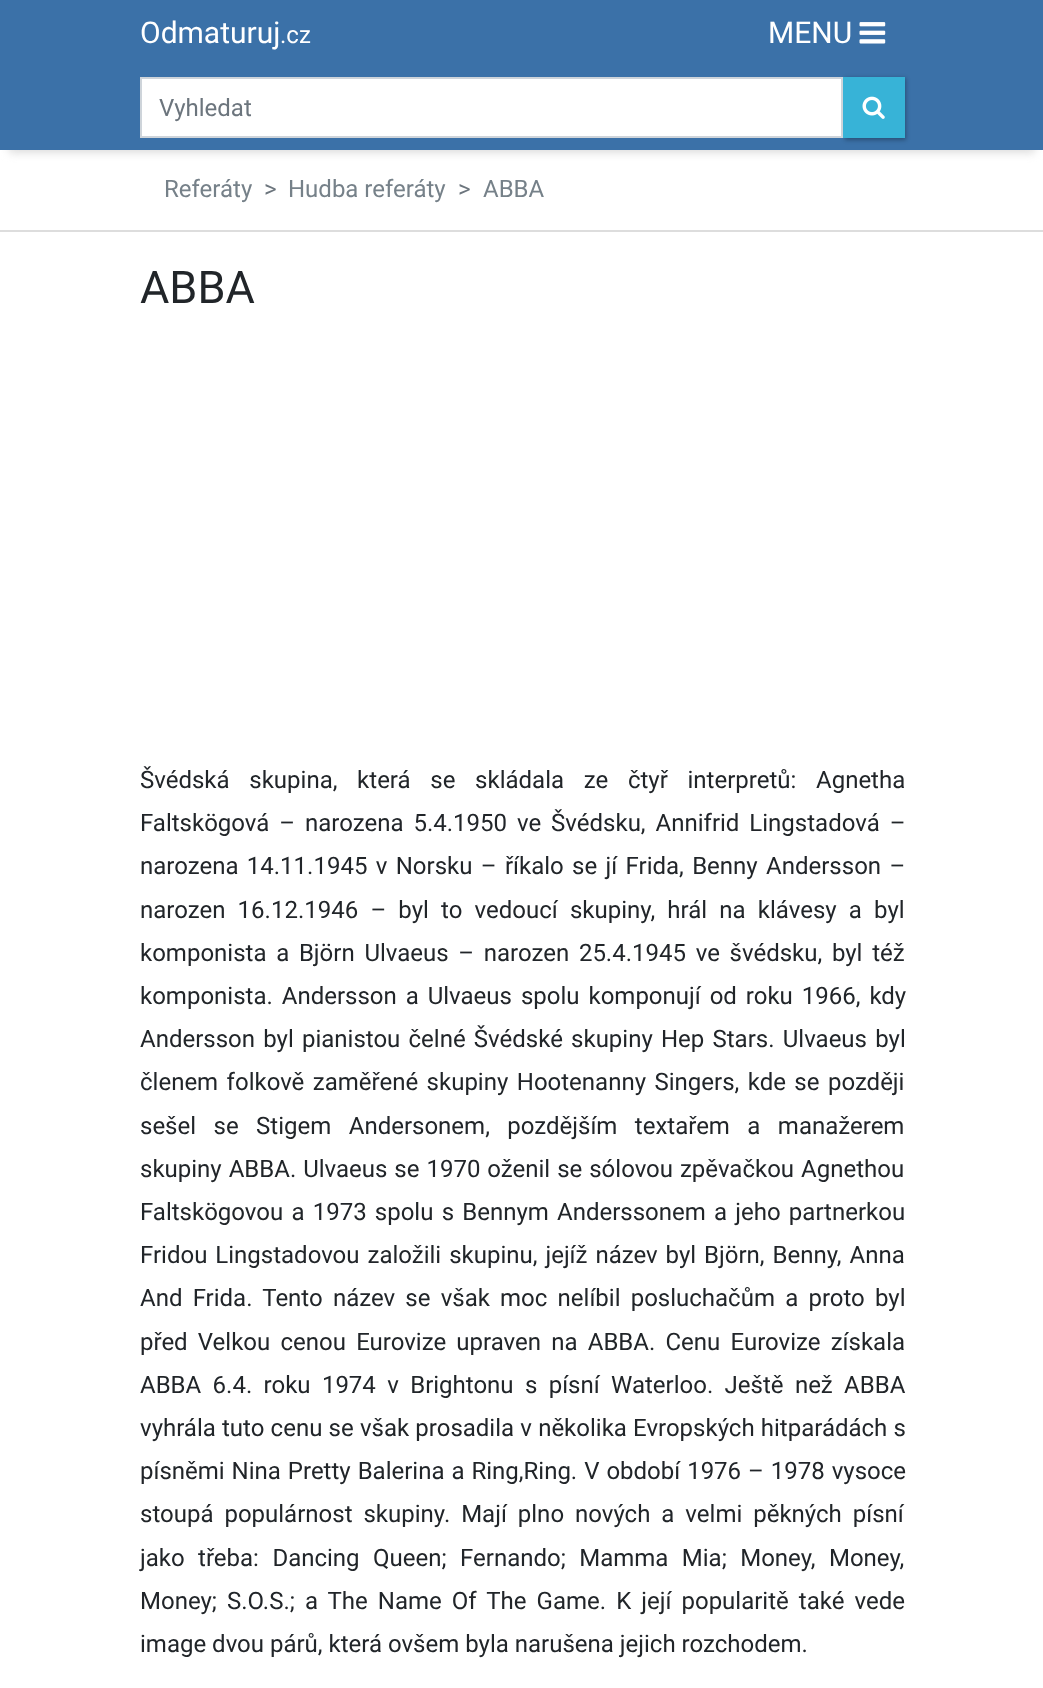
<!DOCTYPE html>
<meta charset="utf-8">
<style>body { margin: 0 } canvas { display: block }</style>
<canvas id="canvas" width="1043" height="1688"></canvas>
<img id="img1" src="img_01.png" hidden>
<img id="img2" src="img_02.png" hidden>
<script>
window.onload = function () {
	const canvas = document.getElementById("canvas");
	const ctx = canvas.getContext("2d");
	ctx.miterLimit = 4;
	ctx.fontKerning = "normal";
	function txt(s, x, y) {
		ctx.fillText(s, x, y);
	}
	function fill(x, y, w, h) {
		ctx.fillRect(x, y, w, h);
	}
	function img(id, x, y, w, h) {
		ctx.drawImage(document.getElementById(id), x, y, w, h);
	}

	ctx.fillStyle = "#FFFFFF";
	fill(0, 0, 1043, 1688);
	ctx.fillStyle = "#DDDDDD";
	ctx.filter = "blur(4.5px)";
	ctx.beginPath();
	ctx.rect(9, 21, 1026, 132);
	ctx.fill();
	ctx.filter = "none";
	ctx.fillStyle = "#3B71A8";
	fill(0, 0, 1043, 150);
	img("img1", 859, 22, 27, 22);
	ctx.fillStyle = "rgba(0, 0, 0, 0.3)";
	ctx.filter = "blur(2px)";
	ctx.beginPath();
	ctx.rect(845, 78, 61, 62);
	ctx.fill();
	ctx.filter = "none";
	ctx.fillStyle = "#FFFFFF";
	ctx.beginPath();
	ctx.rect(141, 78, 701, 59);
	ctx.fill();
	ctx.strokeStyle = "#CED4DA";
	ctx.lineWidth = 2;
	ctx.stroke();
	ctx.fillStyle = "#37B3D7";
	fill(843, 77, 62, 61);
	img("img2", 862, 96, 23, 23);
	ctx.fillStyle = "#DDDDDD";
	fill(0, 230, 1043, 2);
	ctx.font = "30px Roboto";
	ctx.fillStyle = "#FFFFFF";
	txt("Odmaturuj", 140, 43);
	ctx.font = "24px Roboto";
	txt(".cz", 280, 43);
	ctx.font = "30px Roboto";
	txt("MENU", 768, 43);
	ctx.font = "24px Roboto";
	ctx.fillStyle = "#6C757D";
	txt("Vyhledat", 159, 116);
	ctx.fillStyle = "#768189";
	txt("Referáty", 164, 197);
	ctx.fillStyle = "#6C757D";
	txt(">", 264, 197);
	ctx.fillStyle = "#768189";
	txt("Hudba referáty", 288, 197);
	ctx.fillStyle = "#6C757D";
	txt(">", 458, 197);
	ctx.fillStyle = "#768189";
	txt("ABBA", 483, 197);
	ctx.font = "45px Roboto";
	ctx.fillStyle = "#212529";
	txt("ABBA", 140, 303);
	ctx.wordSpacing = "13.75px";
	ctx.font = "24px Roboto";
	txt("Švédská skupina, která se skládala ze čtyř interpretů: Agnetha", 140, 788);
	ctx.wordSpacing = "4px";
	txt("Faltskögová – narozena 5.4.1950 ve Švédsku, Annifrid Lingstadová –", 140, 831);
	ctx.wordSpacing = "2.4px";
	txt("narozena 14.11.1945 v Norsku – říkalo se jí Frida, Benny Andersson –", 140, 874);
	ctx.wordSpacing = "6.25px";
	txt("narozen 16.12.1946 – byl to vedoucí skupiny, hrál na klávesy a byl", 140, 918);
	ctx.wordSpacing = "3.75px";
	txt("komponista a Björn Ulvaeus – narozen 25.4.1945 ve švédsku, byl též", 140, 961);
	ctx.wordSpacing = "3px";
	txt("komponista. Andersson a Ulvaeus spolu komponují od roku 1966, kdy", 140, 1004);
	ctx.wordSpacing = "2.25px";
	txt("Andersson byl pianistou čelné Švédské skupiny Hep Stars. Ulvaeus byl", 140, 1047);
	ctx.wordSpacing = "2.5px";
	txt("členem folkově zaměřené skupiny Hootenanny Singers, kde se později", 140, 1090);
	ctx.wordSpacing = "11.5px";
	txt("sešel se Stigem Andersonem, pozdějším textařem a manažerem", 140, 1134);
	ctx.wordSpacing = "1px";
	txt("skupiny ABBA. Ulvaeus se 1970 oženil se sólovou zpěvačkou Agnethou", 140, 1177);
	ctx.wordSpacing = "2.25px";
	txt("Faltskögovou a 1973 spolu s Bennym Anderssonem a jeho partnerkou", 140, 1220);
	ctx.wordSpacing = "2px";
	txt("Fridou Lingstadovou založili skupinu, jejíž název byl Björn, Benny, Anna", 140, 1263);
	ctx.wordSpacing = "4.25px";
	txt("And Frida. Tento název se však moc nelíbil posluchačům a proto byl", 140, 1306);
	txt("před Velkou cenou Eurovize upraven na ABBA. Cenu Eurovize získala", 140, 1350);
	ctx.wordSpacing = "5.4px";
	txt("ABBA 6.4. roku 1974 v Brightonu s písní Waterloo. Ještě než ABBA", 140, 1393);
	ctx.wordSpacing = "0.25px";
	txt("vyhrála tuto cenu se však prosadila v několika Evropských hitparádách s", 140, 1436);
	ctx.wordSpacing = "1px";
	txt("písněmi Nina Pretty Balerina a Ring,Ring. V období 1976 – 1978 vysoce", 140, 1479);
	ctx.wordSpacing = "5px";
	txt("stoupá populárnost skupiny. Mají plno nových a velmi pěkných písní", 140, 1522);
	ctx.wordSpacing = "7.5px";
	txt("jako třeba: Dancing Queen; Fernando; Mamma Mia; Money, Money,", 140, 1566);
	ctx.wordSpacing = "4.1px";
	txt("Money; S.O.S.; a The Name Of The Game. K její popularitě také vede", 140, 1609);
	ctx.wordSpacing = "0px";
	txt("image dvou párů, která ovšem byla narušena jejich rozchodem.", 140, 1652);
};
</script>
